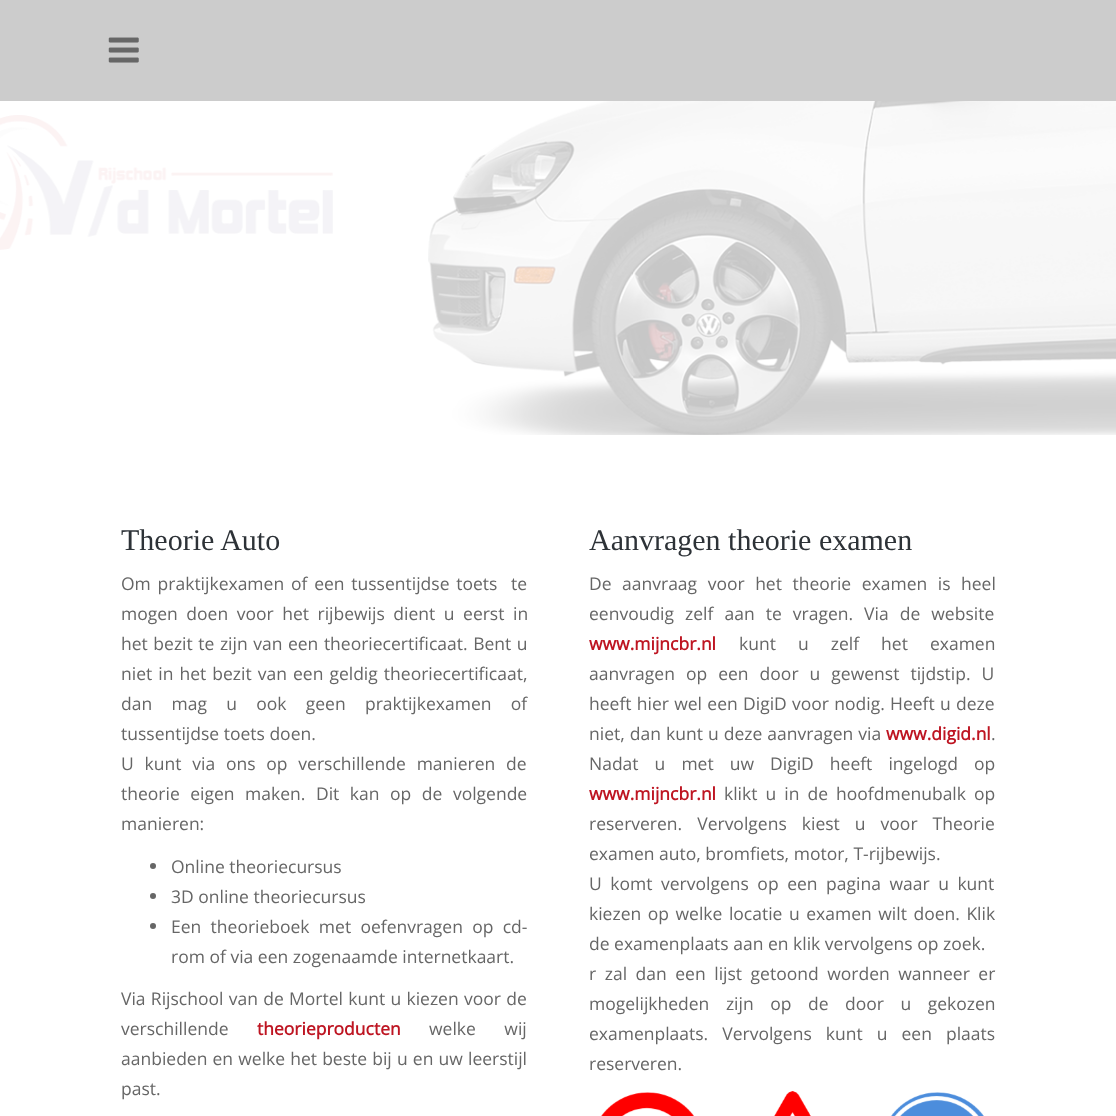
<!DOCTYPE html>
<meta charset="utf-8">
<style>body { margin: 0 } canvas { display: block }</style>
<canvas id="canvas" width="1116" height="1116"></canvas>
<img id="img1" src="img_01.png" hidden>
<img id="img2" src="img_02.png" hidden>
<img id="img3" src="img_03.png" hidden>
<img id="img4" src="img_04.png" hidden>
<script>
window.onload = function () {
	const canvas = document.getElementById("canvas");
	const ctx = canvas.getContext("2d");
	ctx.miterLimit = 4;
	ctx.fontKerning = "normal";
	function txt(s, x, y) {
		ctx.fillText(s, x, y);
	}
	function fill(x, y, w, h) {
		ctx.fillRect(x, y, w, h);
	}
	function img(id, x, y, w, h) {
		ctx.drawImage(document.getElementById(id), x, y, w, h);
	}

	ctx.fillStyle = "#FFFFFF";
	fill(0, 0, 1116, 1116);
	ctx.fillStyle = "#CCCCCC";
	fill(0, 0, 1116, 101);
	img("img1", 108, 37, 31, 26);
	img("img2", 0, 115, 333, 135);
	img("img3", 428, 101, 688, 334);
	ctx.fillStyle = "#666666";
	ctx.beginPath();
	ctx.arc(153, 866, 3, 0, Math.PI * 2);
	ctx.fill();
	ctx.beginPath();
	ctx.arc(153, 896, 3, 0, Math.PI * 2);
	ctx.fill();
	ctx.beginPath();
	ctx.arc(153, 926, 3, 0, Math.PI * 2);
	ctx.fill();
	img("img4", 601, 1091, 383, 25);
	ctx.font = "30px Liberation Serif";
	ctx.fillStyle = "#2D3237";
	txt("Theorie Auto", 121, 550);
	ctx.wordSpacing = "2.25px";
	ctx.font = "17.5px Open Sans";
	ctx.fillStyle = "#666666";
	txt("Om praktijkexamen of een tussentijdse toets  te", 121, 590);
	ctx.wordSpacing = "4px";
	txt("mogen doen voor het rijbewijs dient u eerst in", 121, 620);
	ctx.wordSpacing = "1px";
	txt("het bezit te zijn van een theoriecertificaat. Bent u", 121, 650);
	ctx.wordSpacing = "1.5px";
	txt("niet in het bezit van een geldig theoriecertificaat,", 121, 680);
	ctx.wordSpacing = "14.75px";
	txt("dan mag u ook geen praktijkexamen of", 121, 710);
	ctx.wordSpacing = "0px";
	txt("tussentijdse toets doen.", 121, 740);
	ctx.wordSpacing = "6.25px";
	txt("U kunt via ons op verschillende manieren de", 121, 770);
	ctx.wordSpacing = "6px";
	txt("theorie eigen maken. Dit kan op de volgende", 121, 800);
	ctx.wordSpacing = "0px";
	txt("manieren:", 121, 830);
	txt("Online theoriecursus", 171, 873);
	txt("3D online theoriecursus", 171, 903);
	ctx.wordSpacing = "4.75px";
	txt("Een theorieboek met oefenvragen op cd-", 171, 933);
	ctx.wordSpacing = "0px";
	txt("rom of via een zogenaamde internetkaart.", 171, 963);
	ctx.wordSpacing = "0.75px";
	txt("Via Rijschool van de Mortel kunt u kiezen voor de", 121, 1005);
	ctx.wordSpacing = "0px";
	txt("verschillende", 121, 1035);
	ctx.font = "bold 17.5px Open Sans";
	ctx.fillStyle = "#BE1522";
	txt("theorieproducten", 257, 1035);
	ctx.wordSpacing = "24px";
	ctx.font = "17.5px Open Sans";
	ctx.fillStyle = "#666666";
	txt("welke wij", 429, 1035);
	ctx.wordSpacing = "0.6px";
	txt("aanbieden en welke het beste bij u en uw leerstijl", 121, 1065);
	ctx.wordSpacing = "0px";
	txt("past.", 121, 1095);
	ctx.font = "30px Liberation Serif";
	ctx.fillStyle = "#2D3237";
	txt("Aanvragen theorie examen", 589, 550);
	ctx.wordSpacing = "6px";
	ctx.font = "17.5px Open Sans";
	ctx.fillStyle = "#666666";
	txt("De aanvraag voor het theorie examen is heel", 589, 590);
	ctx.wordSpacing = "6.5px";
	txt("eenvoudig zelf aan te vragen. Via de website", 589, 620);
	ctx.wordSpacing = "0px";
	ctx.font = "bold 17.5px Open Sans";
	ctx.fillStyle = "#BE1522";
	txt("www.mijncbr.nl", 589, 650);
	ctx.wordSpacing = "17.5px";
	ctx.font = "17.5px Open Sans";
	ctx.fillStyle = "#666666";
	txt("kunt u zelf het examen", 739, 650);
	ctx.wordSpacing = "6.5px";
	txt("aanvragen op een door u gewenst tijdstip. U", 589, 680);
	ctx.wordSpacing = "0.75px";
	txt("heeft hier wel een DigiD voor nodig. Heeft u deze", 589, 710);
	ctx.wordSpacing = "0.5px";
	txt("niet, dan kunt u deze aanvragen via", 589, 740);
	ctx.wordSpacing = "0px";
	ctx.font = "bold 17.5px Open Sans";
	ctx.fillStyle = "#BE1522";
	txt("www.digid.nl", 886, 740);
	ctx.font = "17.5px Open Sans";
	ctx.fillStyle = "#666666";
	txt(".", 991, 740);
	ctx.wordSpacing = "11.5px";
	txt("Nadat u met uw DigiD heeft ingelogd op", 589, 770);
	ctx.wordSpacing = "0px";
	ctx.font = "bold 17.5px Open Sans";
	ctx.fillStyle = "#BE1522";
	txt("www.mijncbr.nl", 589, 800);
	ctx.wordSpacing = "3.5px";
	ctx.font = "17.5px Open Sans";
	ctx.fillStyle = "#666666";
	txt("klikt u in de hoofdmenubalk op", 724, 800);
	ctx.wordSpacing = "10.5px";
	txt("reserveren. Vervolgens kiest u voor Theorie", 589, 830);
	ctx.wordSpacing = "0px";
	txt("examen auto, bromfiets, motor, T-rijbewijs.", 589, 860);
	ctx.wordSpacing = "4px";
	txt("U komt vervolgens op een pagina waar u kunt", 589, 890);
	ctx.wordSpacing = "2px";
	txt("kiezen op welke locatie u examen wilt doen. Klik", 589, 920);
	ctx.wordSpacing = "0px";
	txt("de examenplaats aan en klik vervolgens op zoek.", 589, 950);
	ctx.wordSpacing = "4px";
	txt("r zal dan een lijst getoond worden wanneer er", 589, 980);
	ctx.wordSpacing = "12px";
	txt("mogelijkheden zijn op de door u gekozen", 589, 1010);
	ctx.wordSpacing = "9.5px";
	txt("examenplaats. Vervolgens kunt u een plaats", 589, 1040);
	ctx.wordSpacing = "0px";
	txt("reserveren.", 589, 1070);
};
</script>
